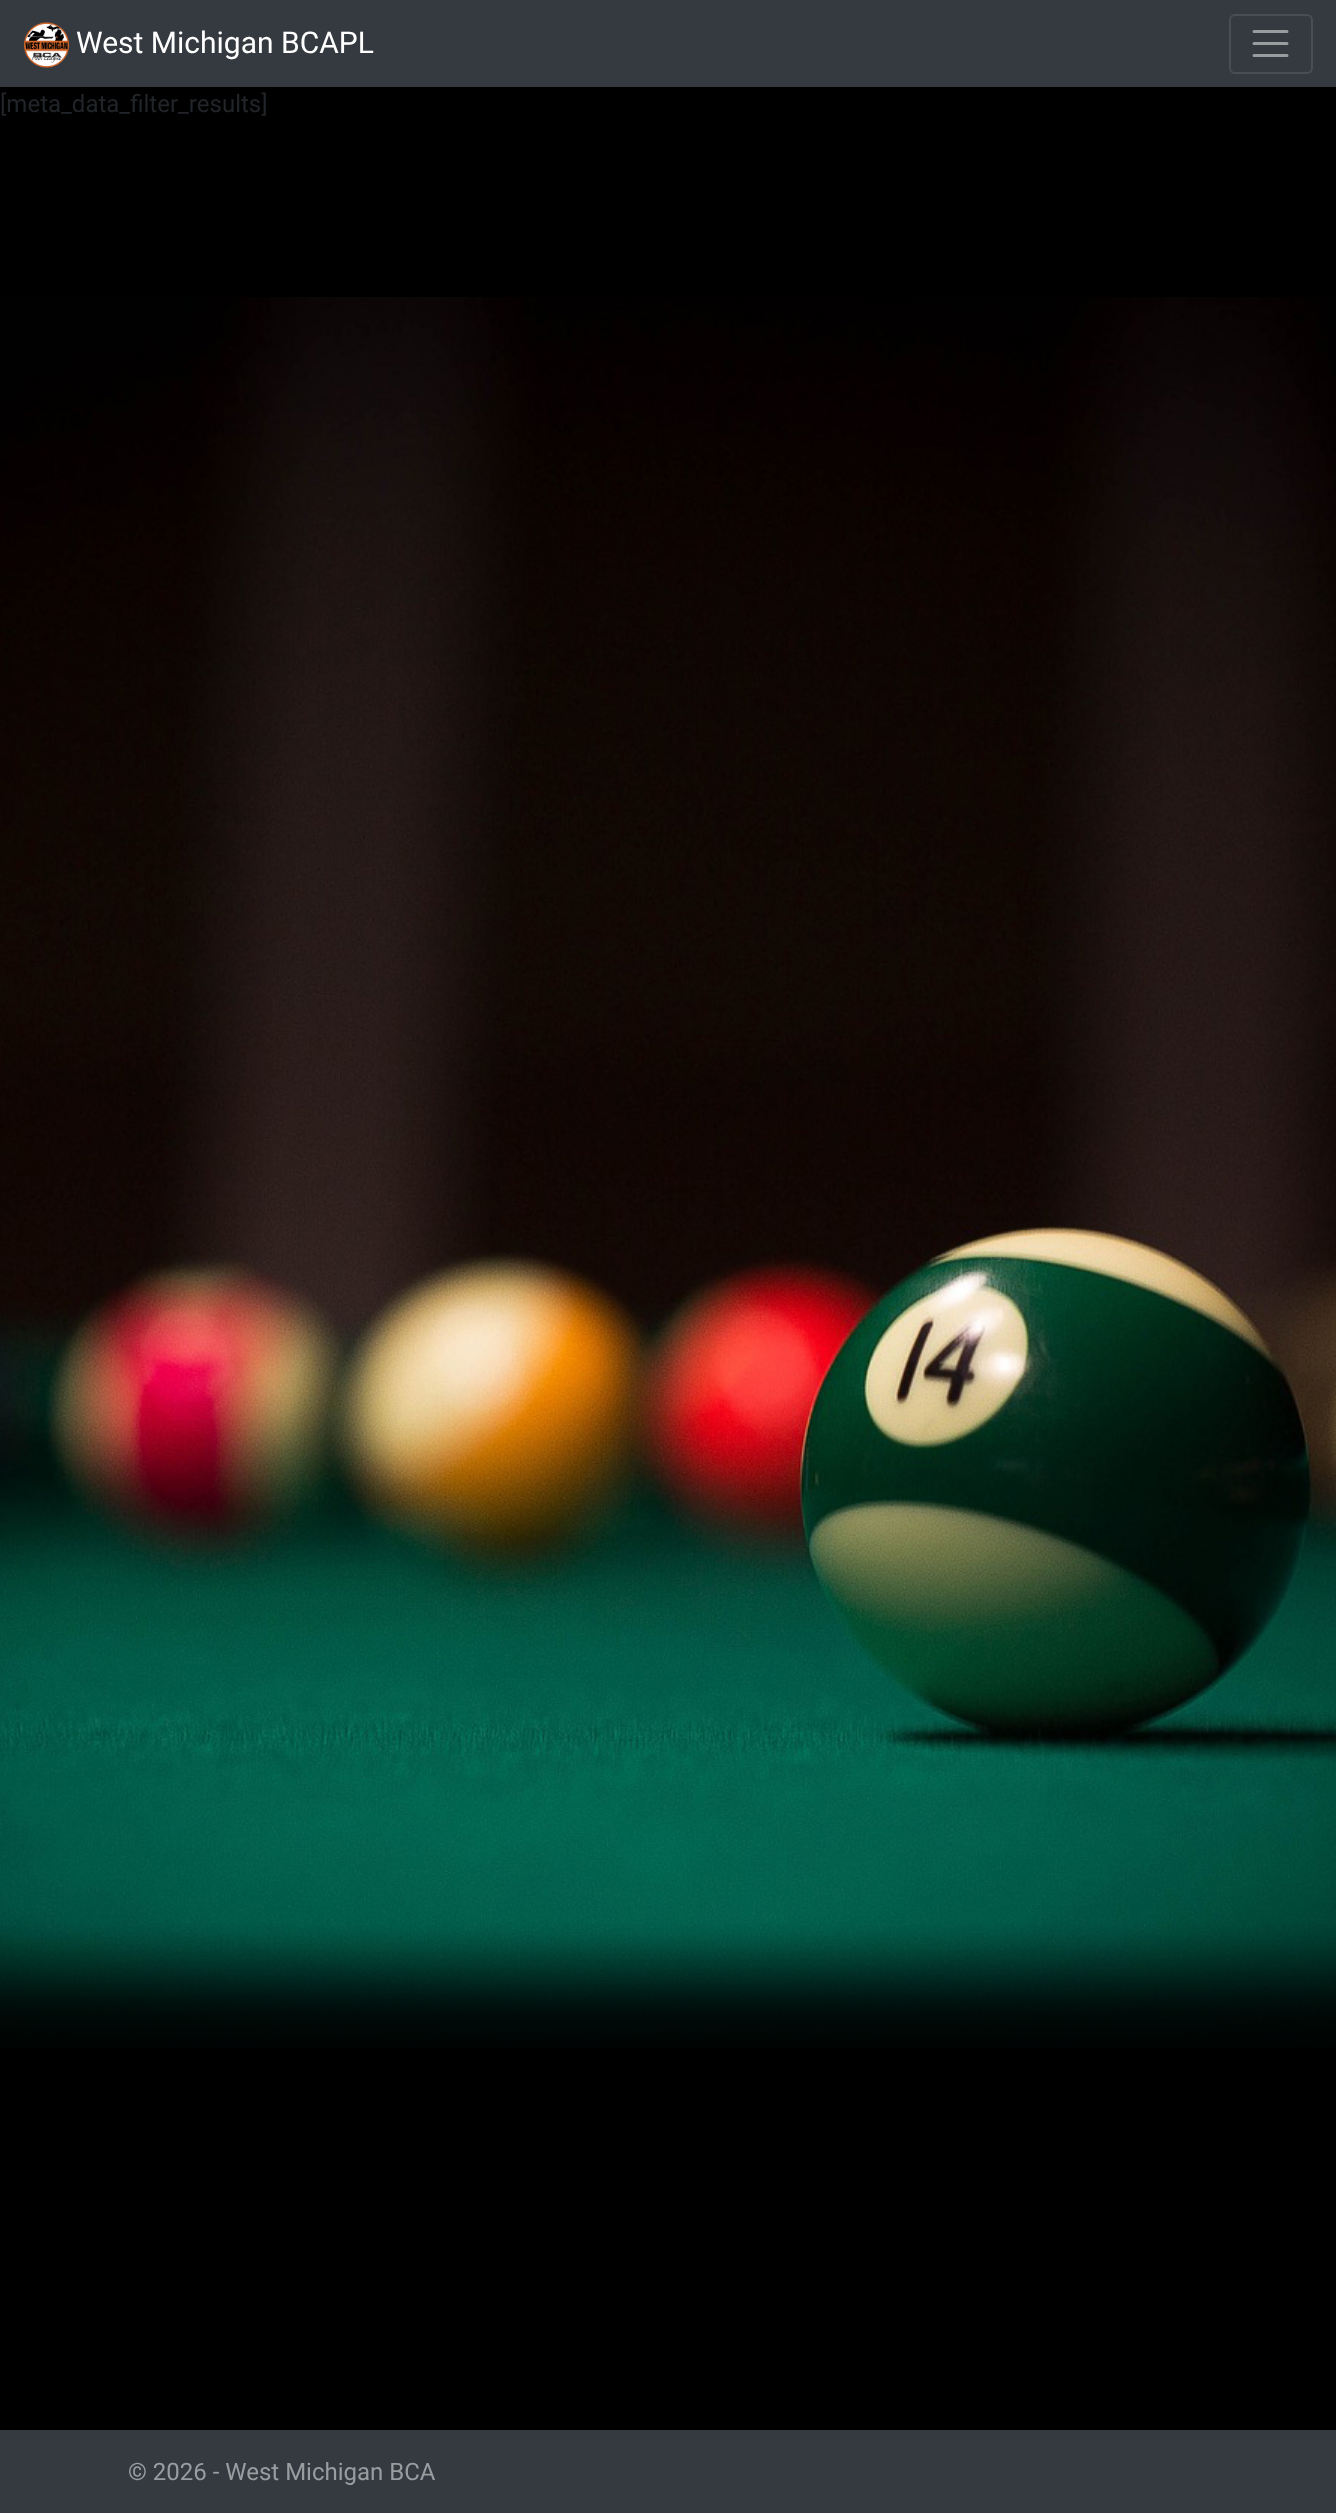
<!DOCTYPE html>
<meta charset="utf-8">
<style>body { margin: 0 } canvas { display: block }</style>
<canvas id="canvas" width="1336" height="2513"></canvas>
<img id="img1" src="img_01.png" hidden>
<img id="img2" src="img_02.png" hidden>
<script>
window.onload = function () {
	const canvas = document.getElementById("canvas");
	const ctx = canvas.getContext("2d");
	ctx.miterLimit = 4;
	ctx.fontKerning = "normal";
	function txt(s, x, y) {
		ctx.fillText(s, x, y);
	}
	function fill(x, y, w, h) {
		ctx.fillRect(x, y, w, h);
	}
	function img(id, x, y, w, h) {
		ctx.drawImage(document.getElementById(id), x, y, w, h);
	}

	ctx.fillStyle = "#000000";
	fill(0, 0, 1336, 2513);
	img("img1", 0, 297, 1336, 1751);
	ctx.fillStyle = "#343A40";
	fill(0, 0, 1336, 87);
	img("img2", 24, 22, 45, 46);
	ctx.beginPath();
	ctx.roundRect(1230, 15, 82, 58, 5);
	ctx.strokeStyle = "#484E53";
	ctx.lineWidth = 2;
	ctx.stroke();
	ctx.beginPath();
	ctx.moveTo(1254, 31.5);
	ctx.lineTo(1287, 31.5);
	ctx.moveTo(1254, 43.5);
	ctx.lineTo(1287, 43.5);
	ctx.moveTo(1254, 55.5);
	ctx.lineTo(1287, 55.5);
	ctx.strokeStyle = "#9A9DA0";
	ctx.lineWidth = 3;
	ctx.lineCap = "round";
	ctx.stroke();
	fill(0, 2430, 1336, 83);
	ctx.font = "30px Roboto";
	ctx.fillStyle = "#FFFFFF";
	txt("West Michigan BCAPL", 76, 53);
	ctx.font = "24px Roboto";
	ctx.fillStyle = "#212529";
	txt("[meta_data_filter_results]", 0, 112);
	ctx.fillStyle = "#9A9DA0";
	txt("© 2026 - West Michigan BCA", 128, 2480);
};
</script>
